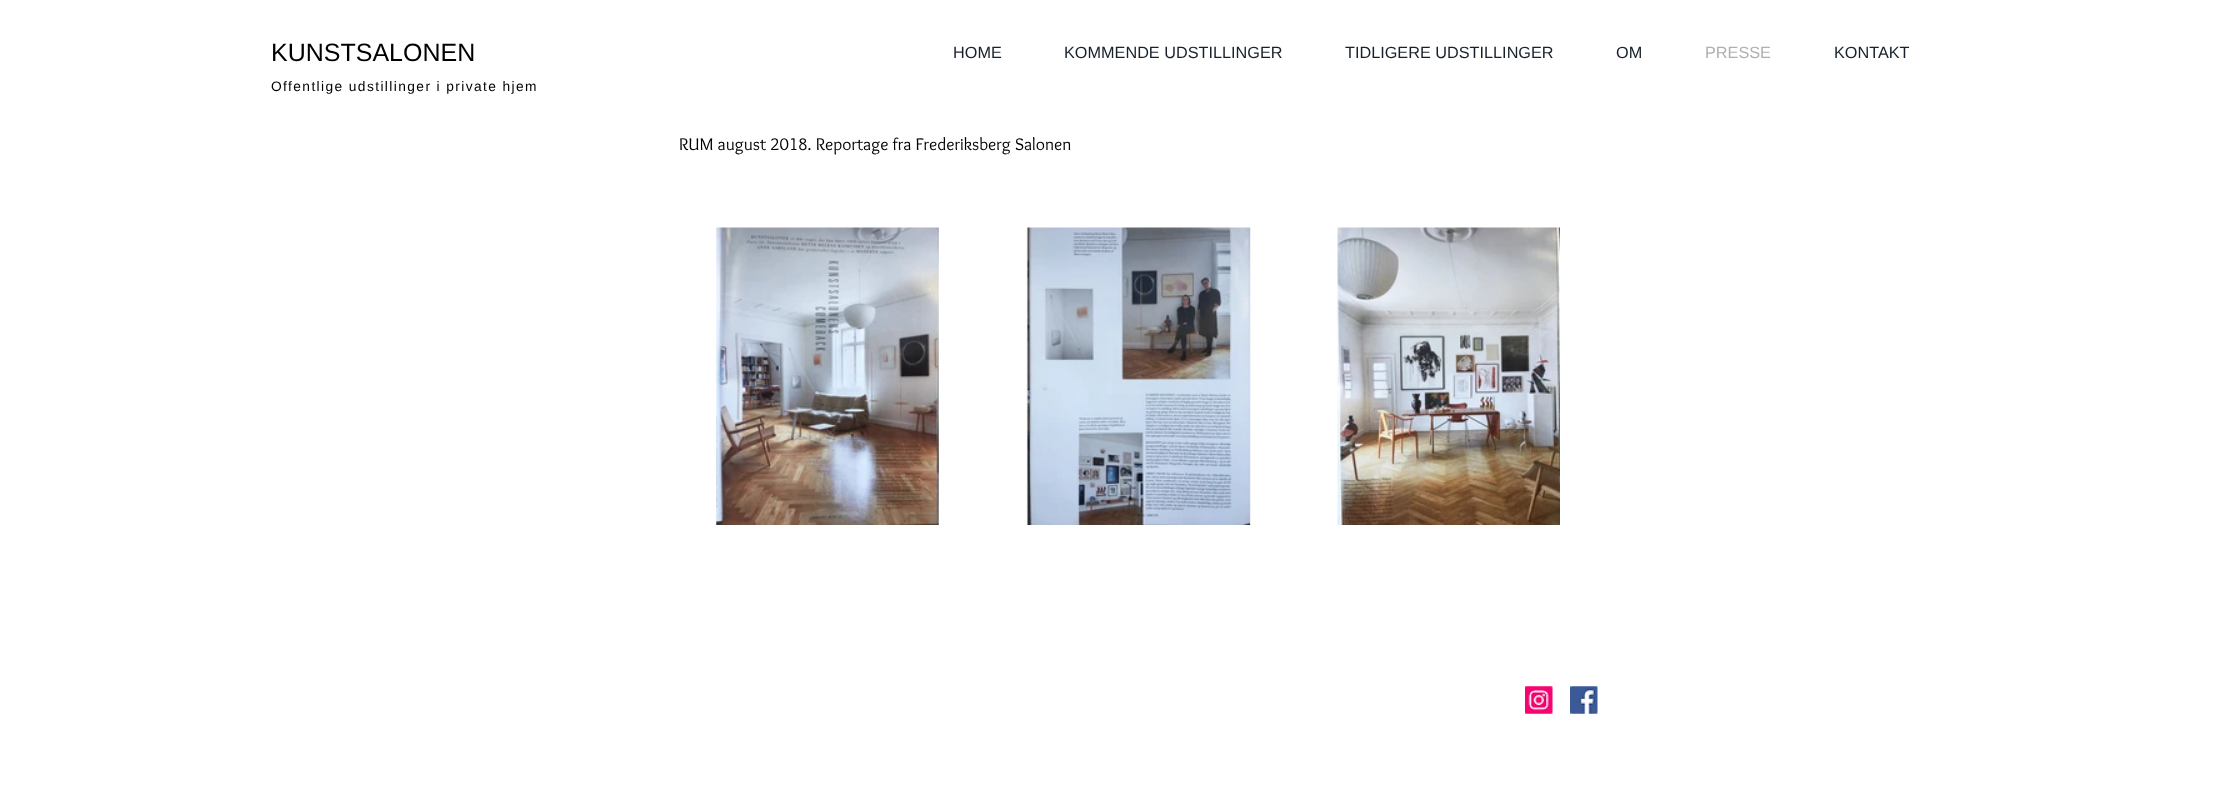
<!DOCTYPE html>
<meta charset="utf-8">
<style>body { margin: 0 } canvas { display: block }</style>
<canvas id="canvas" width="2239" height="806"></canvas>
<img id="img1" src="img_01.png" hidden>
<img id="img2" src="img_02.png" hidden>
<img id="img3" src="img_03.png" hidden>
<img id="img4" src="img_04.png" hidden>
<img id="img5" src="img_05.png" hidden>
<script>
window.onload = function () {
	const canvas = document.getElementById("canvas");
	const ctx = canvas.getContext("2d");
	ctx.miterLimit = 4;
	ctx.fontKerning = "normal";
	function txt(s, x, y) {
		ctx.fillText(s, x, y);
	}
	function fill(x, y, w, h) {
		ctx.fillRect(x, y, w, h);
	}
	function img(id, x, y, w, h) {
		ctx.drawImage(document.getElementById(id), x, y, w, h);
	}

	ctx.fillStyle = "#FFFFFF";
	fill(0, 0, 2239, 806);
	img("img1", 716, 227, 223, 298);
	ctx.fillStyle = "#F8F8F8";
	fill(1026, 228, 225, 297);
	img("img2", 1027, 227, 224, 298);
	img("img3", 1337, 227, 223, 298);
	img("img4", 1525, 686, 28, 28);
	img("img5", 1570, 686, 28, 28);
	ctx.font = "25px Liberation Sans";
	ctx.fillStyle = "#000000";
	txt("KUNSTSALONEN", 271, 61);
	ctx.font = "16.25px Liberation Sans";
	ctx.fillStyle = "#16212B";
	txt("HOME", 953, 58);
	txt("KOMMENDE UDSTILLINGER", 1064, 58);
	txt("TIDLIGERE UDSTILLINGER", 1345, 58);
	txt("OM", 1616, 58);
	ctx.fillStyle = "#AFAFAF";
	txt("PRESSE", 1705, 58);
	ctx.fillStyle = "#16212B";
	txt("KONTAKT", 1834, 58);
	ctx.letterSpacing = "1.4px";
	ctx.font = "13.75px Liberation Sans";
	ctx.fillStyle = "#000000";
	txt("Offentlige udstillinger i private hjem", 271, 91);
	ctx.letterSpacing = "0px";
	ctx.font = "17.5px Overlock";
	txt("RUM august 2018. Reportage fra Frederiksberg Salonen", 679, 150);
};
</script>
